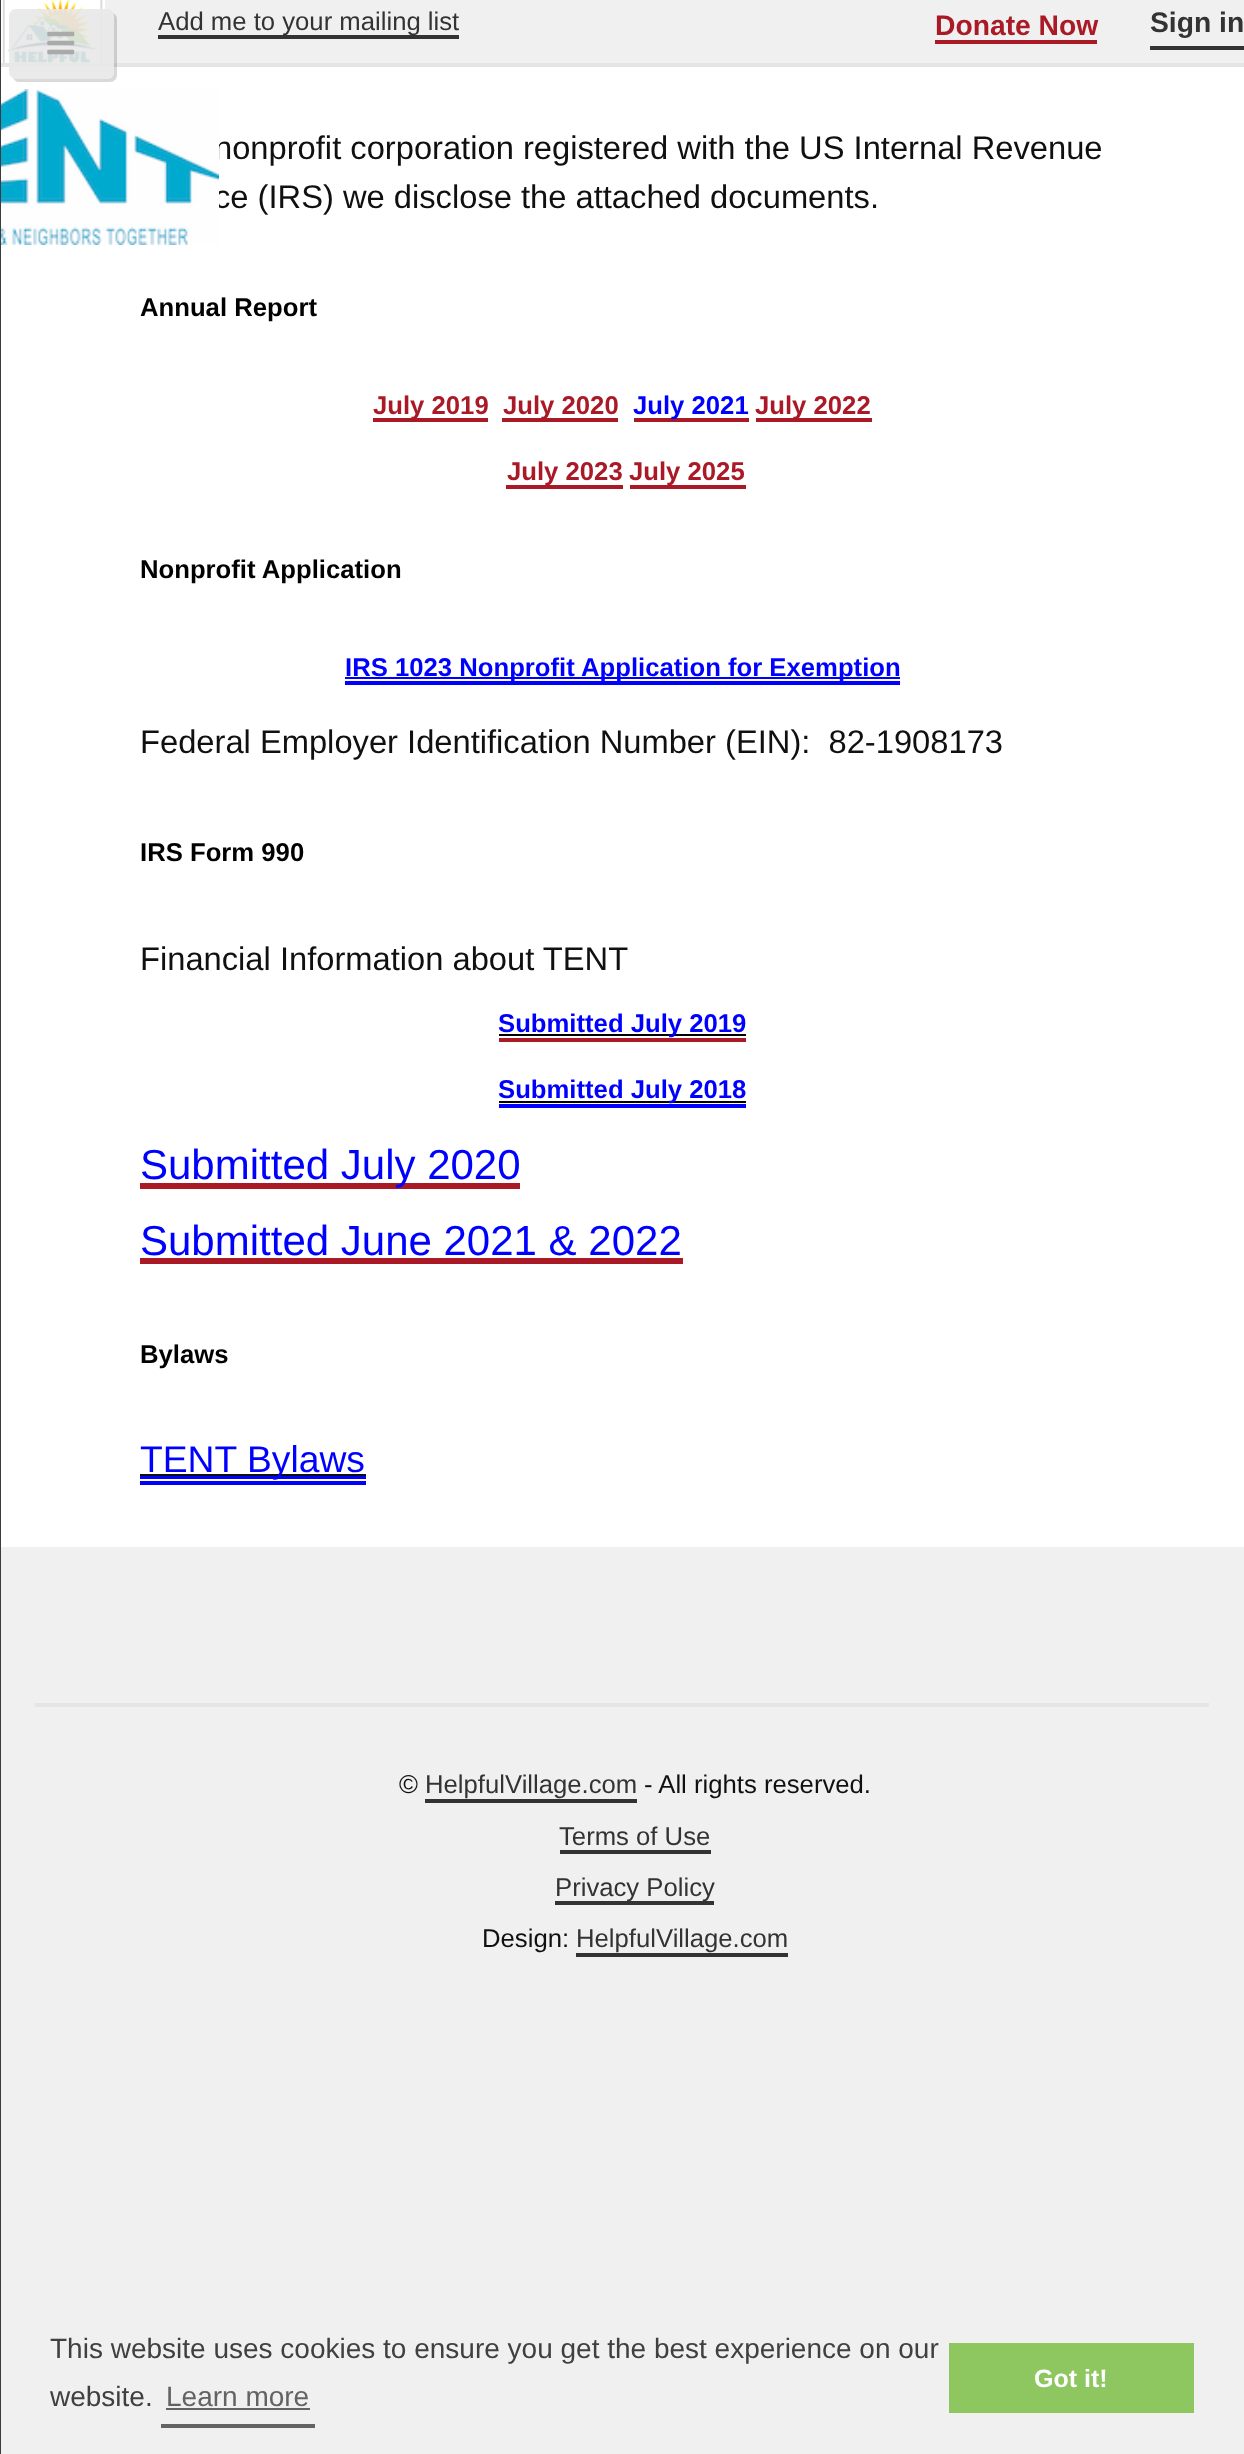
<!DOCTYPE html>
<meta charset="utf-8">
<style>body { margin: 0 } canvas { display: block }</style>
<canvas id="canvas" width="1244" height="2454"></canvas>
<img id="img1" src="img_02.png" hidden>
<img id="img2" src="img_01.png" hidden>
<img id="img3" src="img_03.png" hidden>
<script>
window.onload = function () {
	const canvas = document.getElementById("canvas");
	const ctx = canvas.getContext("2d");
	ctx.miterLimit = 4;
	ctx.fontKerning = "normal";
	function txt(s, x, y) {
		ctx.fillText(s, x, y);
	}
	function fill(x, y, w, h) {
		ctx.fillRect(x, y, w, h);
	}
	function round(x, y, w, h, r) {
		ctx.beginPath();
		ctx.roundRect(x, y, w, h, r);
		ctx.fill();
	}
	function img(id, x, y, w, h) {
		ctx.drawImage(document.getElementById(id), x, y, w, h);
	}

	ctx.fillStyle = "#F0F0F0";
	fill(0, 0, 1244, 2454);
	ctx.fillStyle = "#E5E5E5";
	fill(0, 63, 1244, 4);
	ctx.fillStyle = "#3C3C3C";
	fill(0, 0, 1, 2454);
	img("img1", 1, 0, 104, 63);
	ctx.fillStyle = "#FFFFFF";
	fill(1, 67, 1243, 1480);
	ctx.fillStyle = "rgba(0, 0, 0, 0.15)";
	ctx.beginPath();
	ctx.moveTo(13, 78);
	ctx.bezierCurveTo(14, 80, 16, 82, 19, 82);
	ctx.lineTo(110, 82);
	ctx.bezierCurveTo(114, 82, 117, 79, 117, 75);
	ctx.lineTo(117, 19);
	ctx.bezierCurveTo(117, 16, 115, 14, 113, 13);
	ctx.lineTo(114, 16);
	ctx.lineTo(114, 72);
	ctx.bezierCurveTo(114, 76, 111, 79, 107, 79);
	ctx.lineTo(16, 79);
	ctx.closePath();
	ctx.fill();
	ctx.fillStyle = "rgba(232, 232, 232, 0.9)";
	round(9, 9, 105, 70, 7);
	img("img2", 47, 31, 28, 24);
	ctx.fillStyle = "#333333";
	fill(158, 35, 301, 4);
	ctx.fillStyle = "#AA1A26";
	fill(935, 40, 162, 4);
	ctx.fillStyle = "#333333";
	fill(1150, 46, 94, 4);
	ctx.fillStyle = "#AA1A26";
	fill(373, 418, 115, 4);
	fill(502, 418, 116, 4);
	fill(634, 418, 115, 4);
	fill(756, 418, 116, 4);
	fill(506, 485, 117, 4);
	fill(630, 485, 116, 4);
	ctx.fillStyle = "#0000FF";
	fill(345, 681, 555, 4);
	fill(345, 677, 555, 2);
	ctx.fillStyle = "#AA1A26";
	fill(499, 1038, 247, 4);
	ctx.fillStyle = "#000000";
	fill(499, 1034, 247, 2);
	ctx.fillStyle = "#0000FF";
	fill(499, 1104, 247, 4);
	ctx.fillStyle = "#000000";
	fill(499, 1101, 247, 2);
	ctx.fillStyle = "#AA1A26";
	fill(140, 1183, 380, 6);
	fill(140, 1258, 543, 6);
	ctx.fillStyle = "#0000FF";
	fill(140, 1481, 226, 4);
	fill(140, 1476, 226, 3);
	ctx.fillStyle = "#101010";
	fill(140, 1474, 226, 2);
	ctx.fillStyle = "#E5E5E5";
	fill(35, 1703, 1174, 4);
	ctx.fillStyle = "#333333";
	fill(425, 1799, 212, 4);
	fill(560, 1850, 151, 4);
	fill(555, 1901, 159, 4);
	fill(576, 1953, 212, 4);
	ctx.fillStyle = "#636363";
	fill(161, 2424, 154, 4);
	fill(166, 2408, 144, 2);
	ctx.fillStyle = "#8EC760";
	fill(949, 2343, 245, 70);
	ctx.font = "25.7px Liberation Sans";
	ctx.fillStyle = "#333333";
	txt("Add me to your mailing list", 158, 30);
	ctx.font = "bold 28.25px Liberation Sans";
	ctx.fillStyle = "#AA1A26";
	txt("Donate Now", 935, 35);
	ctx.fillStyle = "#333333";
	txt("Sign in", 1150, 32);
	ctx.font = "32.7px Liberation Sans";
	ctx.fillStyle = "#101010";
	txt("nonprofit corporation registered with the US Internal Revenue", 214, 159);
	txt("ce (IRS) we disclose the attached documents.", 214, 208);
	img("img3", 1, 89, 218, 156);
	ctx.font = "bold 25.7px Liberation Sans";
	ctx.fillStyle = "#000000";
	txt("Annual Report", 140, 316);
	ctx.fillStyle = "#AA1A26";
	txt("July 2019", 373, 414);
	txt("July 2020", 503, 414);
	ctx.fillStyle = "#0000FF";
	txt("July 2021", 633, 414);
	ctx.fillStyle = "#AA1A26";
	txt("July 2022", 755, 414);
	txt("July 2023", 507, 480);
	txt("July 2025", 629, 480);
	ctx.fillStyle = "#000000";
	txt("Nonprofit Application", 140, 578);
	ctx.fillStyle = "#0000FF";
	txt("IRS 1023 Nonprofit Application for Exemption", 345, 676);
	ctx.font = "32.7px Liberation Sans";
	ctx.fillStyle = "#101010";
	txt("Federal Employer Identification Number (EIN):  82-1908173", 140, 753);
	ctx.font = "bold 25.7px Liberation Sans";
	ctx.fillStyle = "#000000";
	txt("IRS Form 990", 140, 861);
	ctx.font = "32.7px Liberation Sans";
	ctx.fillStyle = "#101010";
	txt("Financial Information about TENT", 140, 970);
	ctx.font = "bold 25.7px Liberation Sans";
	ctx.fillStyle = "#0000FF";
	txt("Submitted July 2019", 498, 1032);
	txt("Submitted July 2018", 498, 1098);
	ctx.font = "42px Liberation Sans";
	txt("Submitted July 2020", 140, 1179);
	txt("Submitted June 2021 & 2022", 140, 1255);
	ctx.font = "bold 25.7px Liberation Sans";
	ctx.fillStyle = "#000000";
	txt("Bylaws", 140, 1363);
	ctx.font = "37.25px Liberation Sans";
	ctx.fillStyle = "#0000FF";
	txt("TENT Bylaws", 140, 1472);
	ctx.font = "25.7px Liberation Sans";
	ctx.fillStyle = "#101010";
	txt("©", 399, 1793);
	ctx.fillStyle = "#333333";
	txt("HelpfulVillage.com", 425, 1793);
	ctx.fillStyle = "#101010";
	txt("- All rights reserved.", 644, 1793);
	ctx.fillStyle = "#333333";
	txt("Terms of Use", 559, 1845);
	txt("Privacy Policy", 555, 1896);
	ctx.fillStyle = "#101010";
	txt("Design:", 482, 1947);
	ctx.fillStyle = "#333333";
	txt("HelpfulVillage.com", 576, 1947);
	ctx.font = "28px Liberation Sans";
	ctx.fillStyle = "#404040";
	txt("This website uses cookies to ensure you get the best experience on our", 50, 2358);
	txt("website.", 50, 2406);
	ctx.fillStyle = "#636363";
	txt("Learn more", 166, 2406);
	ctx.font = "bold 25px Liberation Sans";
	ctx.fillStyle = "#FFFFFF";
	txt("Got it!", 1034, 2387);
};
</script>
